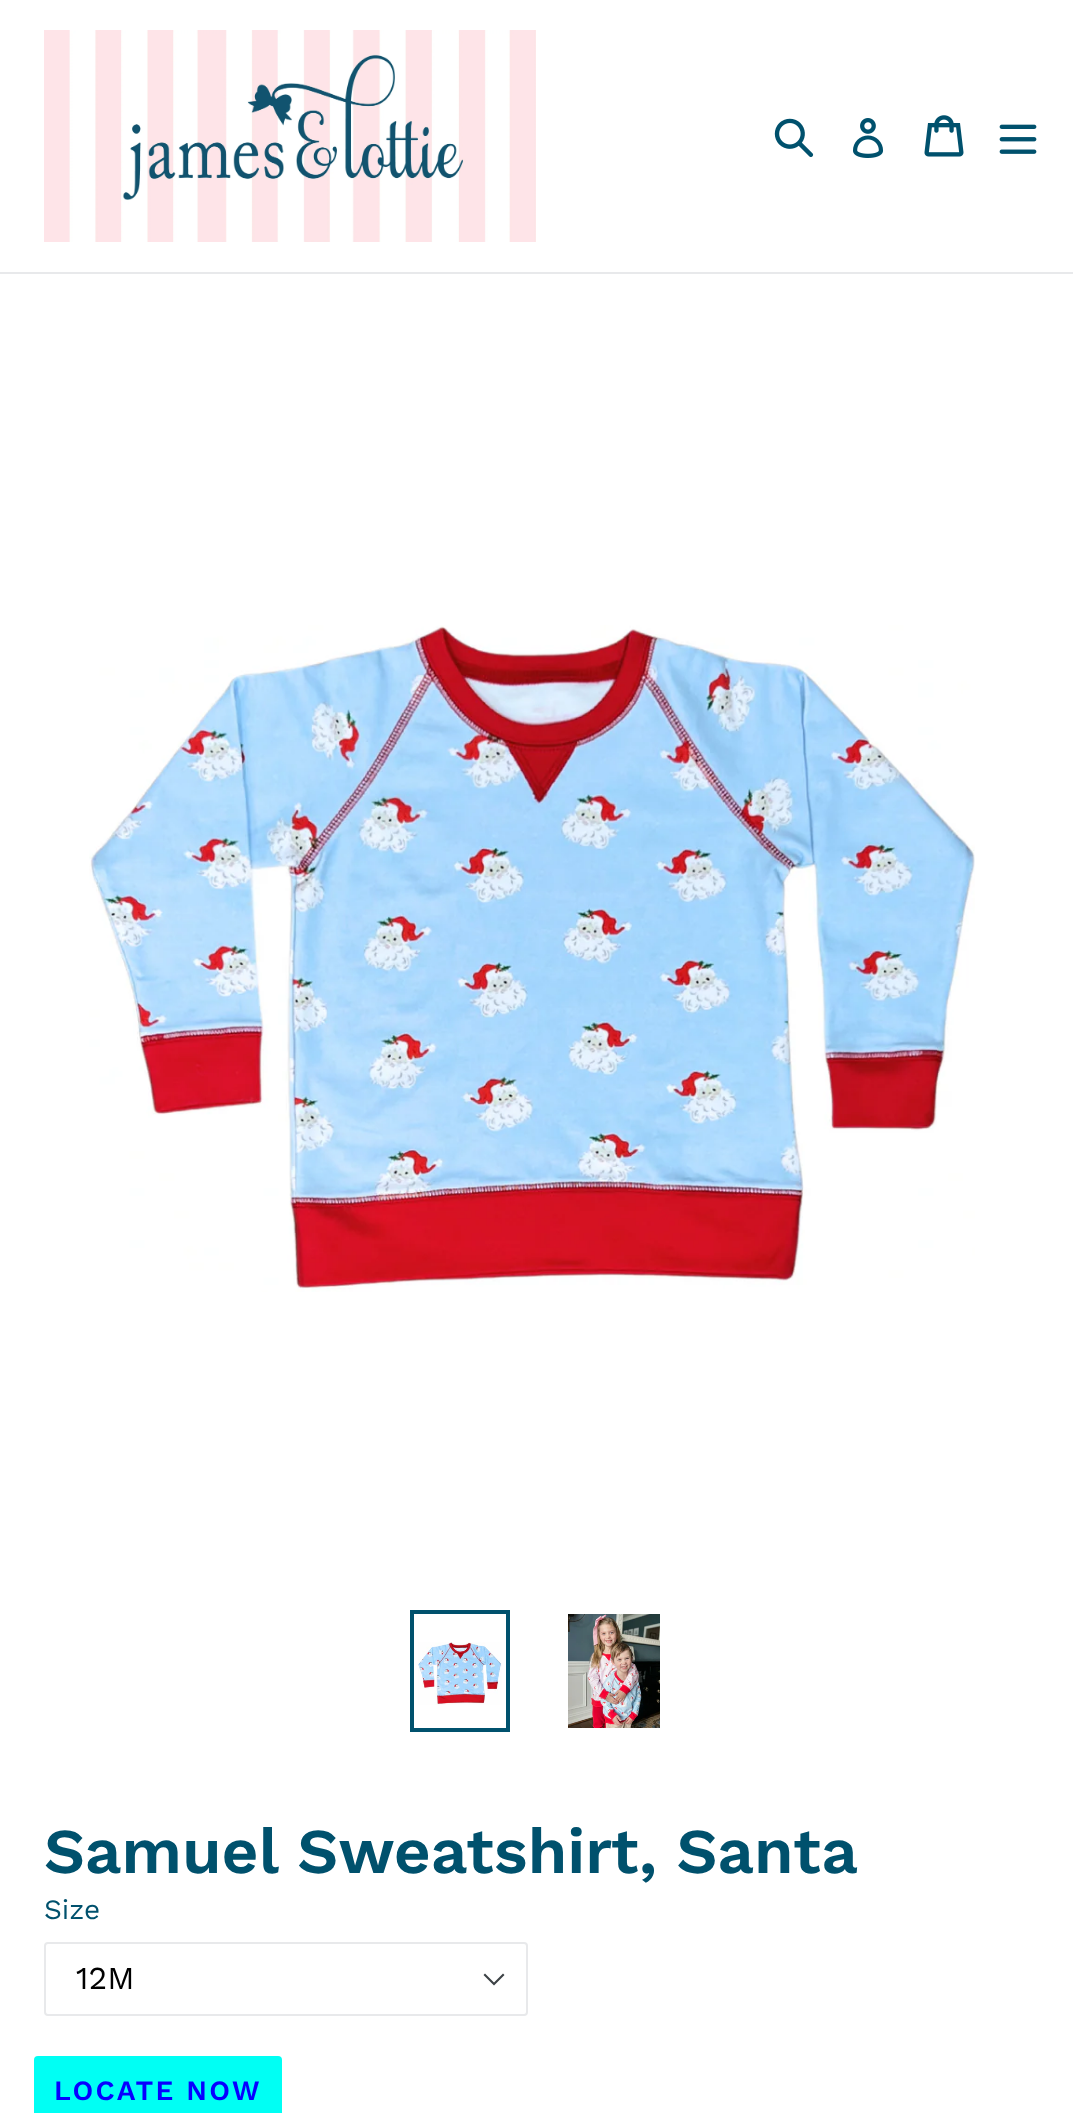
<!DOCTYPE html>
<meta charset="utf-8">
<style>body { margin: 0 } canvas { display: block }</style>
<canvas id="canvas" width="1073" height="2113"></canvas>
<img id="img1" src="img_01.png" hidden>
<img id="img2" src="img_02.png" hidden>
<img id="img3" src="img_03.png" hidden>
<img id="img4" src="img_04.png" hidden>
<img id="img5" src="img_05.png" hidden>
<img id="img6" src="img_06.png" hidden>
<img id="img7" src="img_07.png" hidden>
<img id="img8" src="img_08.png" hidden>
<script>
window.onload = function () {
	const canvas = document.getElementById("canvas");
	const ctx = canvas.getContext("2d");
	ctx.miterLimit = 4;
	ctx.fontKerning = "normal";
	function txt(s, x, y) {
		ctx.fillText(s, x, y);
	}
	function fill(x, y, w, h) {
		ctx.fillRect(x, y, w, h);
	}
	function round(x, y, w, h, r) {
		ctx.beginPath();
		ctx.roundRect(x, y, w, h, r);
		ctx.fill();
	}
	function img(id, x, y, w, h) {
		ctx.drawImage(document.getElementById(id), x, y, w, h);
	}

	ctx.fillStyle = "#FFFFFF";
	fill(0, 0, 1073, 2113);
	ctx.fillStyle = "#E8E9EB";
	fill(0, 272, 1073, 2);
	img("img1", 44, 30, 492, 212);
	img("img2", 774, 118, 40, 40);
	img("img3", 853, 118, 31, 40);
	img("img4", 924, 115, 40, 42);
	img("img5", 999, 124, 38, 30);
	img("img6", 89, 625, 886, 667);
	ctx.strokeStyle = "#00516D";
	ctx.lineWidth = 4;
	ctx.strokeRect(412, 1612, 96, 118);
	img("img7", 418, 1642, 84, 63);
	img("img8", 568, 1614, 92, 114);
	ctx.fillStyle = "#3D4246";
	ctx.beginPath();
	ctx.moveTo(494, 1985.5);
	ctx.lineTo(483.5, 1975);
	ctx.lineTo(485, 1973.5);
	ctx.lineTo(494, 1982.5);
	ctx.lineTo(503, 1973.5);
	ctx.lineTo(504.5, 1975);
	ctx.closePath();
	ctx.fill();
	ctx.beginPath();
	ctx.roundRect(45, 1943, 482, 72, 3);
	ctx.strokeStyle = "#E8E9EB";
	ctx.lineWidth = 2;
	ctx.stroke();
	ctx.fillStyle = "#00FFF4";
	round(34, 2056, 248, 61, 4);
	ctx.font = "600 64px Work Sans";
	ctx.fillStyle = "#00516D";
	txt("Samuel Sweatshirt, Santa", 44, 1873);
	ctx.font = "28px Work Sans";
	txt("Size", 44, 1919);
	ctx.font = "32px Work Sans";
	ctx.fillStyle = "#000000";
	txt("12M", 76, 1989);
	ctx.letterSpacing = "2.25px";
	ctx.font = "600 28px Work Sans";
	ctx.fillStyle = "#0800FF";
	txt("LOCATE NOW", 54, 2100);
};
</script>
